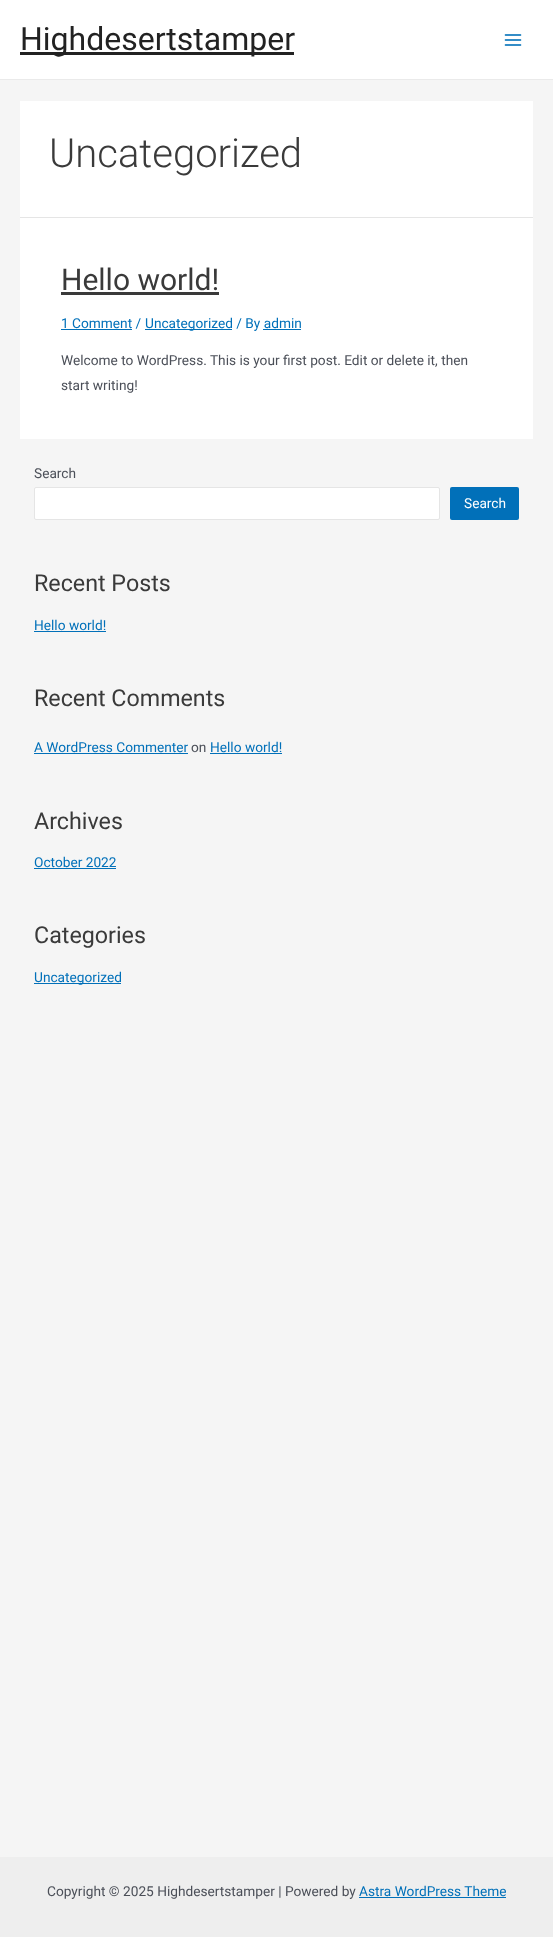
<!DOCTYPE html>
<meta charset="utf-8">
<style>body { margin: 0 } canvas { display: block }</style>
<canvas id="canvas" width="553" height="1937"></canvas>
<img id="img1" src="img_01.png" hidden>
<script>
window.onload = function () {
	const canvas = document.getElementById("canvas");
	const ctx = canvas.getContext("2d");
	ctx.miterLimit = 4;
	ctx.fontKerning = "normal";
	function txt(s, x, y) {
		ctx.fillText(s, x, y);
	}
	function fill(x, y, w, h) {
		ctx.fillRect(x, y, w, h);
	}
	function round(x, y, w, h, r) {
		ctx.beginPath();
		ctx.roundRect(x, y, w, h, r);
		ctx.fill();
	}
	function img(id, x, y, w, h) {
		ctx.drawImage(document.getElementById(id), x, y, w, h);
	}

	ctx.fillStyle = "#F5F5F5";
	fill(0, 0, 553, 1937);
	ctx.fillStyle = "#FFFFFF";
	fill(0, 0, 553, 79);
	ctx.fillStyle = "#EAEAEA";
	fill(0, 79, 553, 1);
	ctx.fillStyle = "#222222";
	fill(20, 52, 274, 3);
	img("img1", 504, 34, 18, 12);
	ctx.fillStyle = "#FFFFFF";
	fill(20, 101, 513, 116);
	ctx.fillStyle = "#E5E5E5";
	fill(20, 217, 513, 1);
	ctx.fillStyle = "#FFFFFF";
	fill(20, 218, 513, 221);
	ctx.fillStyle = "#3A3A3A";
	fill(61, 292, 158, 3);
	ctx.fillStyle = "#0170B9";
	fill(61, 329, 71, 1);
	fill(145, 329, 87, 1);
	fill(263, 329, 38, 1);
	ctx.fillStyle = "#FFFFFF";
	ctx.beginPath();
	ctx.roundRect(34.5, 487.5, 405, 32, 1.5);
	ctx.fill();
	ctx.strokeStyle = "#E5E5E5";
	ctx.stroke();
	ctx.fillStyle = "#0170B9";
	round(450, 487, 69, 33, 2);
	fill(34, 631, 72, 1);
	fill(34, 753, 154, 1);
	fill(210, 753, 72, 1);
	fill(34, 868, 82, 1);
	fill(34, 983, 87, 1);
	ctx.fillStyle = "#EEEEEE";
	fill(0, 1857, 553, 80);
	ctx.fillStyle = "#0170B9";
	fill(359, 1897, 147, 1);
	ctx.font = "32px Roboto";
	ctx.fillStyle = "#222222";
	txt("Highdesertstamper", 20, 50);
	ctx.font = "300 40px Roboto";
	ctx.fillStyle = "#3A3A3A";
	txt("Uncategorized", 49, 167);
	ctx.font = "30px Roboto";
	txt("Hello world!", 61, 290);
	ctx.font = "13.7px Roboto";
	ctx.fillStyle = "#0170B9";
	txt("1 Comment /", 61, 328);
	txt("Uncategorized / By admin", 145, 328);
	ctx.fillStyle = "#4B4F58";
	txt("Welcome to WordPress. This is your first post. Edit or delete it, then", 61, 365);
	txt("start writing!", 61, 390);
	txt("Search", 34, 478);
	ctx.fillStyle = "#FFFFFF";
	txt("Search", 464, 508);
	ctx.font = "23.25px Roboto";
	ctx.fillStyle = "#3A3A3A";
	txt("Recent Posts", 34, 591);
	ctx.font = "13.7px Roboto";
	ctx.fillStyle = "#0170B9";
	txt("Hello world!", 34, 630);
	ctx.font = "23.25px Roboto";
	ctx.fillStyle = "#3A3A3A";
	txt("Recent Comments", 34, 706);
	ctx.font = "13.7px Roboto";
	ctx.fillStyle = "#0170B9";
	txt("A WordPress Commenter", 34, 752);
	ctx.fillStyle = "#4B4F58";
	txt("on", 191, 752);
	ctx.fillStyle = "#0170B9";
	txt("Hello world!", 210, 752);
	ctx.font = "23.25px Roboto";
	ctx.fillStyle = "#3A3A3A";
	txt("Archives", 34, 829);
	ctx.font = "13.7px Roboto";
	ctx.fillStyle = "#0170B9";
	txt("October 2022", 34, 867);
	ctx.font = "23.25px Roboto";
	ctx.fillStyle = "#3A3A3A";
	txt("Categories", 34, 943);
	ctx.font = "13.7px Roboto";
	ctx.fillStyle = "#0170B9";
	txt("Uncategorized", 34, 982);
	ctx.fillStyle = "#4B4F58";
	txt("Copyright © 2025 Highdesertstamper | Powered by", 47, 1896);
	ctx.fillStyle = "#0170B9";
	txt("Astra WordPress Theme", 359, 1896);
};
</script>
